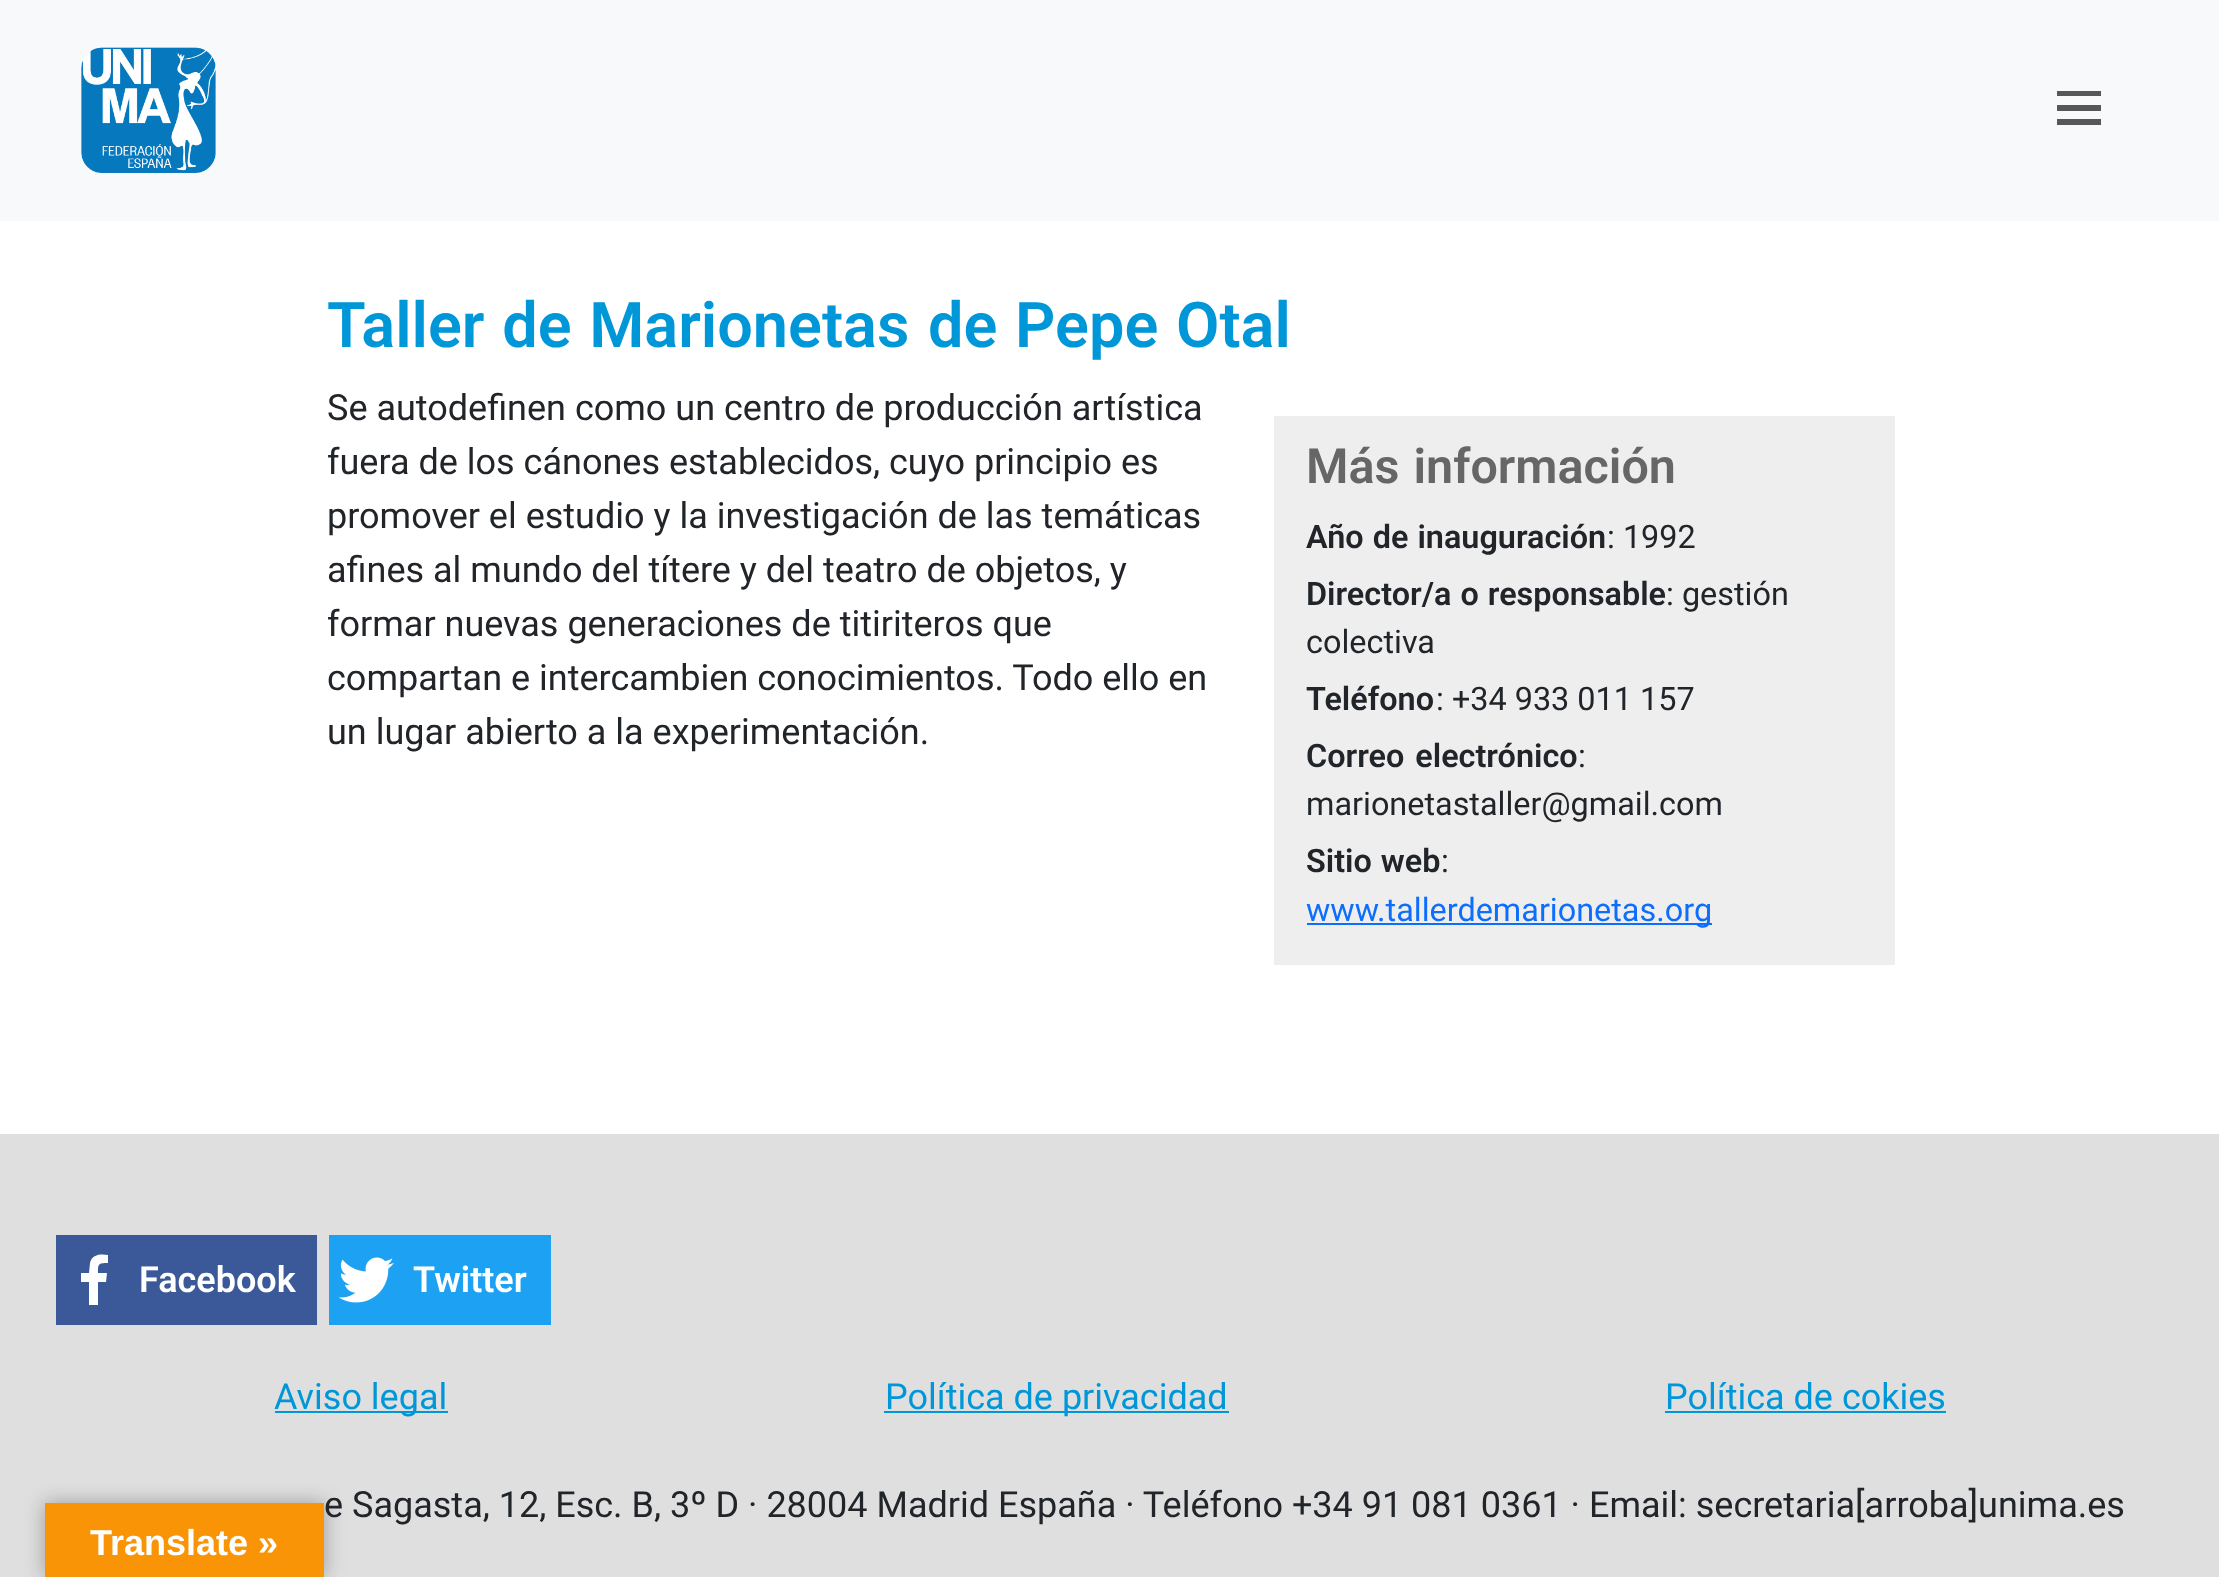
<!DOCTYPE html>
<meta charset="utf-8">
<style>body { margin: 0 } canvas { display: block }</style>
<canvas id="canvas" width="2219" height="1577"></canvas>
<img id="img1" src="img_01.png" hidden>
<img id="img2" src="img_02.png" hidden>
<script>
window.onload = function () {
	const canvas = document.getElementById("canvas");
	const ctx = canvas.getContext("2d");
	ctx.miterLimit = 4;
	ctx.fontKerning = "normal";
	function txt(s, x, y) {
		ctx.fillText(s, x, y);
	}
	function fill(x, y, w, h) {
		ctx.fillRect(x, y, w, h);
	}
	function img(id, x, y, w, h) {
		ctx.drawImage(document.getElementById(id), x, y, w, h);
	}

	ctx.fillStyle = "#FFFFFF";
	fill(0, 0, 2219, 1577);
	ctx.fillStyle = "#F8F9FA";
	fill(0, 0, 2219, 221);
	img("img1", 81, 47, 135, 126);
	ctx.fillStyle = "#575758";
	ctx.beginPath();
	ctx.moveTo(2057, 91);
	ctx.lineTo(2101, 91);
	ctx.lineTo(2101, 96);
	ctx.lineTo(2057, 96);
	ctx.closePath();
	ctx.moveTo(2057, 105);
	ctx.lineTo(2101, 105);
	ctx.lineTo(2101, 111);
	ctx.lineTo(2057, 111);
	ctx.closePath();
	ctx.moveTo(2057, 119);
	ctx.lineTo(2101, 119);
	ctx.lineTo(2101, 125);
	ctx.lineTo(2057, 125);
	ctx.closePath();
	ctx.fill();
	ctx.fillStyle = "#EEEEEE";
	fill(1274, 416, 621, 549);
	ctx.fillStyle = "#0D6EFD";
	fill(1307, 923, 405, 2);
	ctx.fillStyle = "#DFDFDF";
	fill(0, 1134, 2219, 443);
	ctx.fillStyle = "#3B5998";
	fill(56, 1235, 261, 90);
	ctx.fillStyle = "#FFFFFF";
	ctx.beginPath();
	ctx.moveTo(98, 1305);
	ctx.lineTo(98, 1282);
	ctx.lineTo(106, 1282);
	ctx.lineTo(107, 1273);
	ctx.lineTo(98, 1273);
	ctx.bezierCurveTo(98, 1264, 98, 1263, 108, 1263);
	ctx.lineTo(108, 1255);
	ctx.bezierCurveTo(101, 1254, 92, 1254, 90, 1263);
	ctx.lineTo(89, 1273);
	ctx.lineTo(81, 1273);
	ctx.lineTo(81, 1282);
	ctx.lineTo(89, 1282);
	ctx.lineTo(89, 1305);
	ctx.closePath();
	ctx.fill();
	ctx.fillStyle = "#1DA1F2";
	fill(329, 1235, 222, 90);
	img("img2", 338, 1257, 56, 46);
	ctx.fillStyle = "#0097D9";
	fill(275, 1411, 173, 2);
	fill(884, 1411, 345, 2);
	fill(1665, 1411, 281, 2);
	ctx.fillStyle = "rgba(0, 0, 0, 0.3)";
	ctx.filter = "blur(10px)";
	ctx.beginPath();
	ctx.rect(45, 1503, 279, 74);
	ctx.fill();
	ctx.filter = "none";
	ctx.fillStyle = "#F89406";
	fill(45, 1503, 279, 74);
	ctx.wordSpacing = "2px";
	ctx.font = "600 63px Roboto";
	ctx.fillStyle = "#0097D9";
	txt("Taller de Marionetas", 327, 347);
	txt("de Pepe Otal", 928, 347);
	ctx.wordSpacing = "0px";
	ctx.font = "36px Roboto";
	ctx.fillStyle = "#212529";
	txt("Se autodefinen como un centro de producción artística", 327, 420);
	txt("fuera de los cánones establecidos, cuyo principio es", 327, 474);
	txt("promover el estudio y la investigación de las temáticas", 327, 528);
	txt("afines al mundo del títere y del teatro de objetos, y", 327, 582);
	txt("formar nuevas generaciones de titiriteros que", 327, 636);
	txt("compartan e intercambien conocimientos. Todo ello en", 327, 690);
	txt("un lugar abierto a la experimentación.", 327, 744);
	ctx.wordSpacing = "2px";
	ctx.font = "600 48.5px Roboto";
	ctx.fillStyle = "#666666";
	txt("Más información", 1306, 483);
	ctx.wordSpacing = "1px";
	ctx.font = "600 32.4px Roboto";
	ctx.fillStyle = "#212529";
	txt("Año de inauguración", 1306, 548);
	ctx.wordSpacing = "0px";
	ctx.font = "32.4px Roboto";
	txt(": 1992", 1607, 548);
	ctx.wordSpacing = "1px";
	ctx.font = "600 32.4px Roboto";
	txt("Director/a o responsable", 1306, 605);
	ctx.wordSpacing = "0px";
	ctx.font = "32.4px Roboto";
	txt(": gestión", 1666, 605);
	txt("colectiva", 1306, 653);
	ctx.font = "600 32.4px Roboto";
	txt("Teléfono", 1306, 710);
	ctx.font = "32.4px Roboto";
	txt(": +34 933 011 157", 1436, 710);
	ctx.wordSpacing = "3px";
	ctx.font = "600 32.4px Roboto";
	txt("Correo electrónico", 1306, 767);
	ctx.wordSpacing = "0px";
	ctx.font = "32.4px Roboto";
	txt(":", 1578, 767);
	txt("marionetastaller@gmail.com", 1306, 815);
	ctx.wordSpacing = "1px";
	ctx.font = "600 32.4px Roboto";
	txt("Sitio web", 1306, 872);
	ctx.wordSpacing = "0px";
	ctx.font = "32.4px Roboto";
	txt(":", 1441, 872);
	ctx.fillStyle = "#0D6EFD";
	txt("www.tallerdemarionetas.org", 1306, 921);
	ctx.font = "600 36px Roboto";
	ctx.fillStyle = "#FFFFFF";
	txt("Facebook", 139, 1292);
	txt("Twitter", 413, 1292);
	ctx.font = "36px Roboto";
	ctx.fillStyle = "#0097D9";
	txt("Aviso legal", 274, 1409);
	txt("Política de privacidad", 885, 1409);
	txt("Política de cokies", 1665, 1409);
	ctx.fillStyle = "#212529";
	txt("e Sagasta, 12, Esc. B, 3º D · 28004 Madrid España · Teléfono +34 91 081 0361 · Email: secretaria[arroba]unima.es", 324, 1517);
	ctx.font = "bold 36px Liberation Sans";
	ctx.fillStyle = "#FFFFFF";
	txt("Translate »", 90, 1555);
};
</script>
